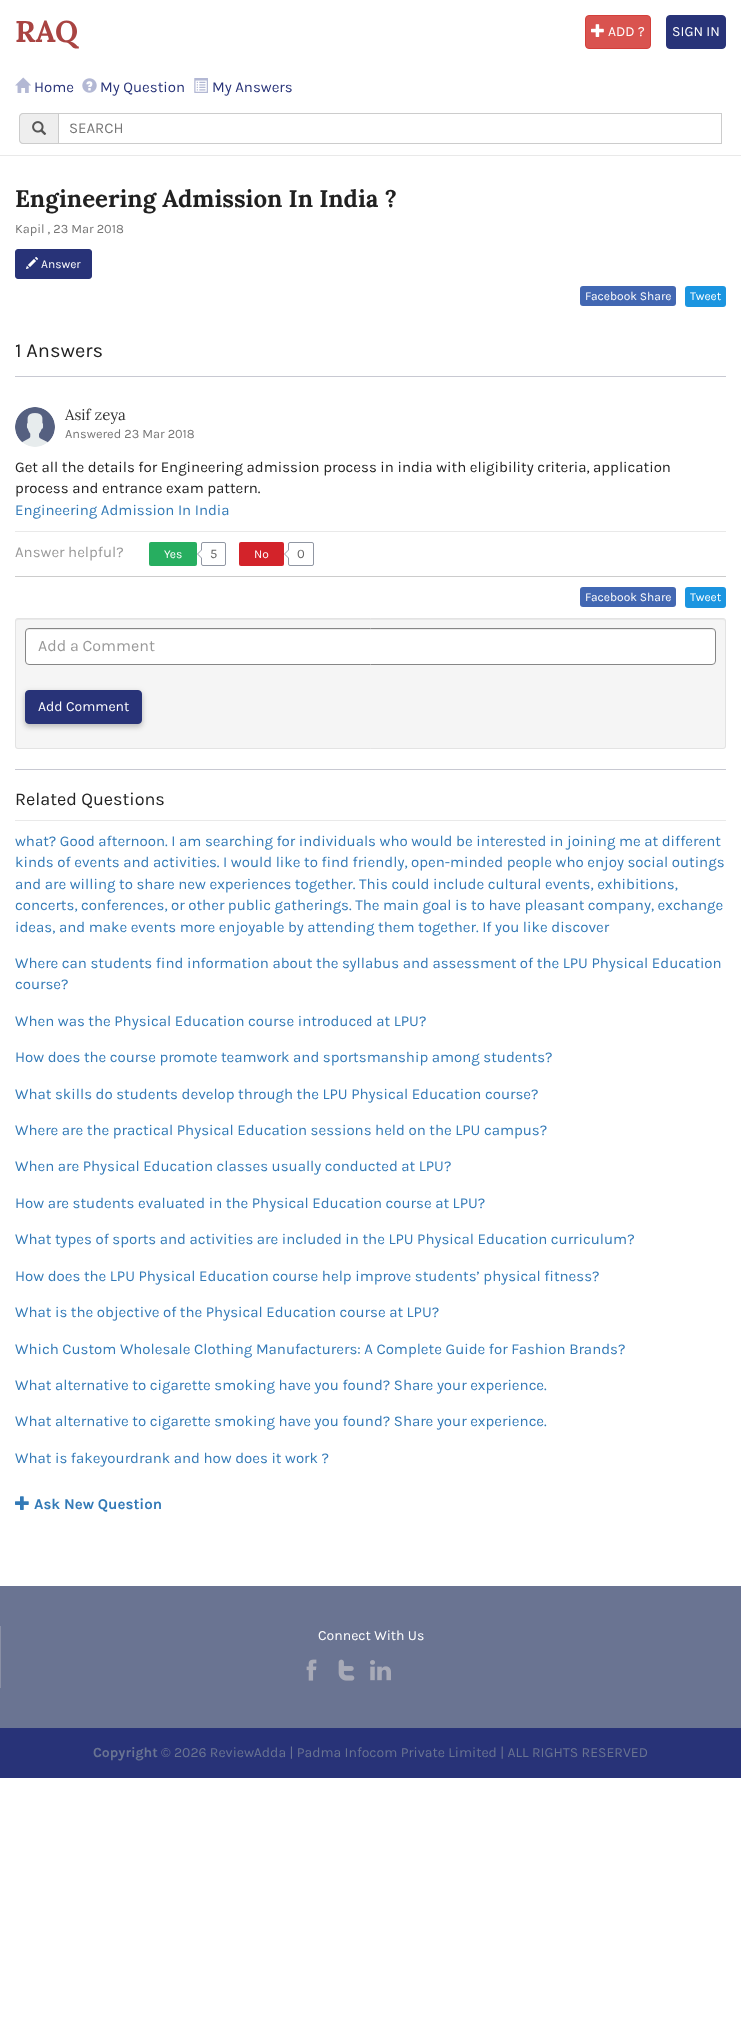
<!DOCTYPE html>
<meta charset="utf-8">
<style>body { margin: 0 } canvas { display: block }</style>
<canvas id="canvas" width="741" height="2031"></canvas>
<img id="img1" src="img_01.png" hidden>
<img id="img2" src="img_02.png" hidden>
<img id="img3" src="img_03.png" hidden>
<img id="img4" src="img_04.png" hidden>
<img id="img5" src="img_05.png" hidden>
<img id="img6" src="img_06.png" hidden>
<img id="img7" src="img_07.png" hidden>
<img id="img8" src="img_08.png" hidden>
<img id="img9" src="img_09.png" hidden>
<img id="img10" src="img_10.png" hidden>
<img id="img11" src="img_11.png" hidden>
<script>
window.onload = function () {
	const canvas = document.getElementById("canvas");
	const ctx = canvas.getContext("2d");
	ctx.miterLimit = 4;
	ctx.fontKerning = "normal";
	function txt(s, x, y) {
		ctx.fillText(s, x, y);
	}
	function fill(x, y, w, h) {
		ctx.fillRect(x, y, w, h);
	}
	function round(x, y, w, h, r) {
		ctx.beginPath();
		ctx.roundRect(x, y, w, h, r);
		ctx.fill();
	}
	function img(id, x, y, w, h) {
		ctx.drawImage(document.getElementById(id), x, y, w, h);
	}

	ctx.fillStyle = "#FFFFFF";
	fill(0, 0, 741, 2031);
	ctx.fillStyle = "#E9E9E9";
	fill(0, 155, 741, 1);
	ctx.fillStyle = "#D9534F";
	ctx.beginPath();
	ctx.roundRect(585.5, 15.5, 65, 33, 3.5);
	ctx.fill();
	ctx.strokeStyle = "#D43F3A";
	ctx.stroke();
	img("img1", 591, 24, 13, 13);
	ctx.fillStyle = "#283378";
	ctx.beginPath();
	ctx.roundRect(666.5, 15.5, 59, 33, 3.5);
	ctx.fill();
	ctx.strokeStyle = "#283378";
	ctx.stroke();
	img("img2", 15, 77, 16, 16);
	img("img3", 82, 78, 15, 15);
	img("img4", 194, 78, 14, 15);
	ctx.fillStyle = "#EEEEEE";
	ctx.beginPath();
	ctx.roundRect(19, 113, 39, 31, [4, 0, 0, 4]);
	ctx.fill();
	ctx.fillStyle = "#CCCCCC";
	ctx.beginPath();
	ctx.moveTo(23, 113);
	ctx.lineTo(58, 113);
	ctx.lineTo(58, 144);
	ctx.lineTo(23, 144);
	ctx.bezierCurveTo(21, 144, 19, 142, 19, 140);
	ctx.lineTo(19, 117);
	ctx.bezierCurveTo(19, 115, 21, 113, 23, 113);
	ctx.closePath();
	ctx.moveTo(23, 114);
	ctx.lineTo(58, 114);
	ctx.lineTo(58, 143);
	ctx.lineTo(23, 143);
	ctx.bezierCurveTo(21.5, 143, 20, 141.5, 20, 140);
	ctx.lineTo(20, 117);
	ctx.bezierCurveTo(20, 115.5, 21.5, 114, 23, 114);
	ctx.closePath();
	ctx.fill("evenodd");
	img("img5", 32, 121, 15, 14);
	ctx.strokeStyle = "#CCCCCC";
	ctx.strokeRect(58.5, 113.5, 663, 30);
	ctx.fillStyle = "#283378";
	ctx.beginPath();
	ctx.roundRect(15.5, 249.5, 76, 29, 2.5);
	ctx.fill();
	ctx.strokeStyle = "#283378";
	ctx.stroke();
	img("img6", 26, 257, 12, 12);
	ctx.fillStyle = "#4267B2";
	round(580, 286, 96, 20, 3);
	ctx.fillStyle = "#1B95E0";
	round(685, 286, 41, 21, 3);
	ctx.fillStyle = "#C8C9D2";
	fill(15, 376, 711, 1);
	img("img7", 15, 407, 40, 40);
	ctx.fillStyle = "#E9E9E9";
	fill(15, 531, 711, 1);
	ctx.fillStyle = "#CCCCCC";
	fill(15, 576, 711, 1);
	ctx.fillStyle = "#27AE60";
	round(149, 542, 48, 24, 2);
	ctx.beginPath();
	ctx.roundRect(201.5, 542.5, 24, 23, 1.5);
	ctx.strokeStyle = "#9197A3";
	ctx.stroke();
	ctx.fillStyle = "#9197A3";
	ctx.beginPath();
	ctx.moveTo(201, 550);
	ctx.lineTo(201, 558);
	ctx.lineTo(197, 554);
	ctx.closePath();
	ctx.fill();
	ctx.fillStyle = "#FFFFFF";
	ctx.beginPath();
	ctx.moveTo(202, 550);
	ctx.lineTo(202, 558);
	ctx.lineTo(198, 554);
	ctx.closePath();
	ctx.fill();
	ctx.fillStyle = "#D3232A";
	round(239, 542, 45, 24, 2);
	ctx.beginPath();
	ctx.roundRect(288.5, 542.5, 25, 23, 1.5);
	ctx.stroke();
	ctx.fillStyle = "#9197A3";
	ctx.beginPath();
	ctx.moveTo(288, 550);
	ctx.lineTo(288, 558);
	ctx.lineTo(284, 554);
	ctx.closePath();
	ctx.fill();
	ctx.fillStyle = "#FFFFFF";
	ctx.beginPath();
	ctx.moveTo(289, 550);
	ctx.lineTo(289, 558);
	ctx.lineTo(285, 554);
	ctx.closePath();
	ctx.fill();
	ctx.fillStyle = "#4267B2";
	round(580, 587, 96, 20, 3);
	ctx.fillStyle = "#1B95E0";
	round(685, 587, 41, 21, 3);
	ctx.fillStyle = "#F5F5F5";
	round(15, 618, 711, 131, 3);
	ctx.fillStyle = "#E9E9E9";
	ctx.beginPath();
	ctx.moveTo(18, 620);
	ctx.lineTo(723, 620);
	ctx.bezierCurveTo(724, 620, 725, 621, 725, 622);
	ctx.bezierCurveTo(725, 621, 725, 619, 723, 619);
	ctx.lineTo(18, 619);
	ctx.bezierCurveTo(16, 619, 16, 621, 16, 622);
	ctx.bezierCurveTo(16, 621, 17, 620, 18, 620);
	ctx.closePath();
	ctx.fill();
	ctx.beginPath();
	ctx.roundRect(15.5, 618.5, 710, 130, 2.5);
	ctx.strokeStyle = "#E3E3E3";
	ctx.stroke();
	ctx.fillStyle = "#FFFFFF";
	round(25, 628, 691, 37, 4);
	ctx.fillStyle = "#ECECEC";
	ctx.beginPath();
	ctx.moveTo(29, 630);
	ctx.lineTo(712, 630);
	ctx.bezierCurveTo(714, 630, 715, 631, 715, 633);
	ctx.lineTo(715, 632);
	ctx.bezierCurveTo(715, 630, 714, 629, 712, 629);
	ctx.lineTo(29, 629);
	ctx.bezierCurveTo(27, 629, 26, 630, 26, 632);
	ctx.lineTo(26, 633);
	ctx.bezierCurveTo(26, 631, 27, 630, 29, 630);
	ctx.closePath();
	ctx.fill();
	ctx.beginPath();
	ctx.roundRect(25.5, 628.5, 690, 36, 3.5);
	ctx.strokeStyle = "#868686";
	ctx.stroke();
	ctx.fillStyle = "rgba(0, 0, 0, 0.14)";
	ctx.filter = "blur(3px)";
	ctx.beginPath();
	ctx.roundRect(25, 692, 117, 34, 4);
	ctx.fill();
	ctx.filter = "none";
	ctx.fillStyle = "rgba(0, 0, 0, 0.12)";
	ctx.filter = "blur(2.5px)";
	ctx.beginPath();
	ctx.roundRect(25, 693, 117, 34, 4);
	ctx.fill();
	ctx.filter = "none";
	ctx.fillStyle = "#283378";
	ctx.beginPath();
	ctx.roundRect(25.5, 690.5, 116, 33, 3.5);
	ctx.fill();
	ctx.strokeStyle = "#283378";
	ctx.stroke();
	ctx.fillStyle = "#C8C9D2";
	fill(15, 769, 711, 1);
	ctx.fillStyle = "#E9E9E9";
	fill(15, 820, 711, 1);
	img("img8", 15, 1496, 14, 14);
	ctx.fillStyle = "#6A7492";
	fill(0, 1586, 741, 142);
	ctx.fillStyle = "#898FA5";
	fill(0, 1626, 1, 62);
	img("img9", 306, 1659, 11, 22);
	img("img10", 338, 1659, 17, 22);
	img("img11", 370, 1660, 21, 21);
	ctx.fillStyle = "#283378";
	fill(0, 1728, 741, 50);
	ctx.font = "bold 30px Lora";
	ctx.fillStyle = "#A94442";
	txt("RAQ", 15, 42);
	ctx.font = "14px Karla";
	ctx.fillStyle = "#FFFFFF";
	txt("ADD ?", 608, 36);
	txt("SIGN IN", 672, 36);
	ctx.font = "15px Karla";
	ctx.fillStyle = "#283378";
	txt("Home", 34, 92);
	txt("My Question", 100, 92);
	txt("My Answers", 212, 92);
	ctx.fillStyle = "#777777";
	txt("SEARCH", 69, 133);
	ctx.font = "bold 24px Lora";
	ctx.fillStyle = "#212121";
	txt("Engineering Admission In India ?", 15, 207);
	ctx.font = "12.75px Karla";
	ctx.fillStyle = "#777777";
	txt("Kapil , 23 Mar 2018", 15, 233);
	ctx.font = "12px Karla";
	ctx.fillStyle = "#FFFFFF";
	txt("Answer", 41, 268);
	txt("Facebook Share", 585, 300);
	txt("Tweet", 690, 300);
	ctx.font = "20px Karla";
	ctx.fillStyle = "#212121";
	txt("1 Answers", 15, 357);
	ctx.font = "15px Lora";
	ctx.fillStyle = "#333333";
	txt("Asif zeya", 65, 420);
	ctx.font = "12.75px Karla";
	ctx.fillStyle = "#777777";
	txt("Answered 23 Mar 2018", 65, 438);
	ctx.font = "15px Karla";
	ctx.fillStyle = "#212121";
	txt("Get all the details for Engineering admission process in india with eligibility criteria, application", 15, 472);
	txt("process and entrance exam pattern.", 15, 493);
	ctx.fillStyle = "#337AB7";
	txt("Engineering Admission In India", 15, 515);
	ctx.fillStyle = "#999999";
	txt("Answer helpful?", 15, 557);
	ctx.font = "12px Karla";
	ctx.fillStyle = "#FFFFFF";
	txt("Yes", 164, 558);
	ctx.font = "13px Karla";
	ctx.fillStyle = "#666666";
	txt("5", 210, 558);
	ctx.font = "12px Karla";
	ctx.fillStyle = "#FFFFFF";
	txt("No", 254, 558);
	ctx.font = "13px Karla";
	ctx.fillStyle = "#666666";
	txt("0", 297, 558);
	ctx.font = "12px Karla";
	ctx.fillStyle = "#FFFFFF";
	txt("Facebook Share", 585, 601);
	txt("Tweet", 690, 601);
	ctx.font = "16px Karla";
	ctx.fillStyle = "#999999";
	txt("Add a Comment", 38, 651);
	ctx.font = "14px Karla";
	ctx.fillStyle = "#FFFFFF";
	txt("Add Comment", 38, 711);
	ctx.font = "18px Karla";
	ctx.fillStyle = "#212121";
	txt("Related Questions", 15, 805);
	ctx.font = "15px Karla";
	ctx.fillStyle = "#337AB7";
	txt("what? Good afternoon. I am searching for individuals who would be interested in joining me at different", 15, 846);
	txt("kinds of events and activities. I would like to find friendly, open-minded people who enjoy social outings", 15, 867);
	txt("and are willing to share new experiences together. This could include cultural events, exhibitions,", 15, 889);
	txt("concerts, conferences, or other public gatherings. The main goal is to have pleasant company, exchange", 15, 910);
	txt("ideas, and make events more enjoyable by attending them together. If you like discover", 15, 932);
	txt("Where can students find information about the syllabus and assessment of the LPU Physical Education", 15, 968);
	txt("course?", 15, 989);
	txt("When was the Physical Education course introduced at LPU?", 15, 1026);
	txt("How does the course promote teamwork and sportsmanship among students?", 15, 1062);
	txt("What skills do students develop through the LPU Physical Education course?", 15, 1099);
	txt("Where are the practical Physical Education sessions held on the LPU campus?", 15, 1135);
	txt("When are Physical Education classes usually conducted at LPU?", 15, 1171);
	txt("How are students evaluated in the Physical Education course at LPU?", 15, 1208);
	txt("What types of sports and activities are included in the LPU Physical Education curriculum?", 15, 1244);
	txt("How does the LPU Physical Education course help improve students’ physical fitness?", 15, 1281);
	txt("What is the objective of the Physical Education course at LPU?", 15, 1317);
	txt("Which Custom Wholesale Clothing Manufacturers: A Complete Guide for Fashion Brands?", 15, 1354);
	txt("What alternative to cigarette smoking have you found? Share your experience.", 15, 1390);
	txt("What alternative to cigarette smoking have you found? Share your experience.", 15, 1426);
	txt("What is fakeyourdrank and how does it work ?", 15, 1463);
	ctx.font = "bold 15px Karla";
	txt("Ask New Question", 34, 1509);
	ctx.font = "14px Karla";
	ctx.fillStyle = "#FFFFFF";
	txt("Connect With Us", 318, 1640);
	ctx.font = "bold 14px Karla";
	ctx.fillStyle = "#6A7492";
	txt("Copyright", 93, 1757);
	ctx.font = "14px Karla";
	txt("© 2026 ReviewAdda | Padma Infocom Private Limited | ALL RIGHTS RESERVED", 161, 1757);
};
</script>
